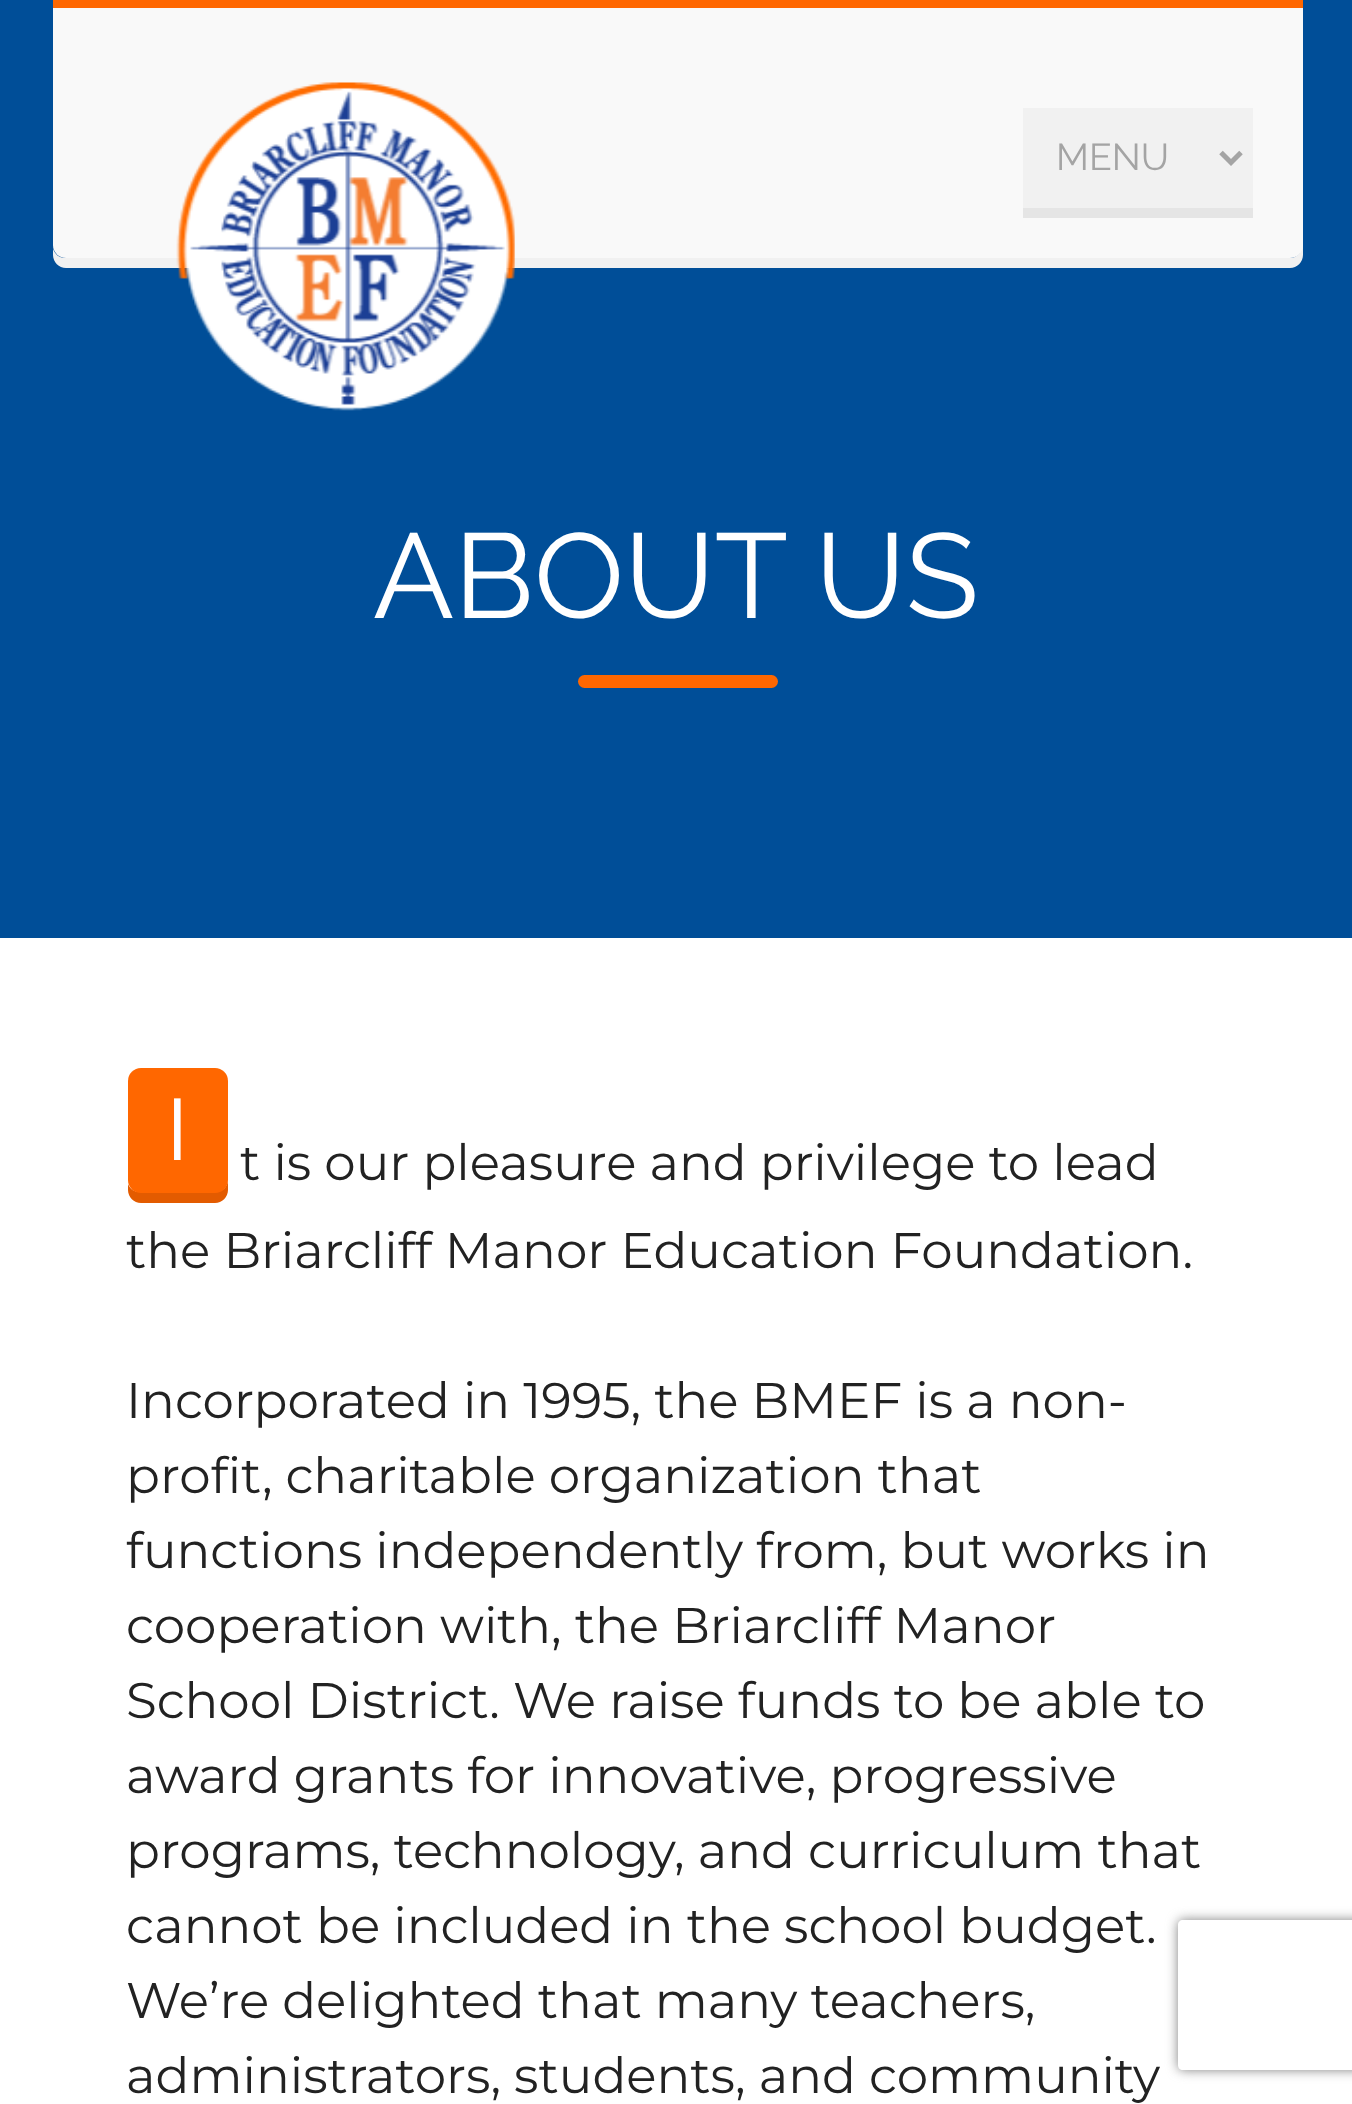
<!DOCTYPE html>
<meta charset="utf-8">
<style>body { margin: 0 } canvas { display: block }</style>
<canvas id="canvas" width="1352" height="2104"></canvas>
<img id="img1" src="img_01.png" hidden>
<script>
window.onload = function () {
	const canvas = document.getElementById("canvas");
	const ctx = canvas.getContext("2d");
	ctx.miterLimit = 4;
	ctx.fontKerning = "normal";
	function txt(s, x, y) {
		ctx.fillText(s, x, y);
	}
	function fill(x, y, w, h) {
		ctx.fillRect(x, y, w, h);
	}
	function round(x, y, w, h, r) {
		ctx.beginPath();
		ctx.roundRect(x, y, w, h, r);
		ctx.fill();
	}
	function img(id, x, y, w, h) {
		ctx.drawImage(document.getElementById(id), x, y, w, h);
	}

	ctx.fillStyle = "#FFFFFF";
	fill(0, 0, 1352, 2104);
	ctx.fillStyle = "#004E98";
	fill(0, 0, 1352, 938);
	ctx.fillStyle = "#FF6700";
	fill(53, 0, 1250, 8);
	ctx.fillStyle = "#F1F1F1";
	ctx.beginPath();
	ctx.moveTo(53, 249);
	ctx.lineTo(53, 255);
	ctx.bezierCurveTo(53, 262, 59, 268, 66, 268);
	ctx.lineTo(1290, 268);
	ctx.bezierCurveTo(1297, 268, 1303, 262, 1303, 255);
	ctx.lineTo(1303, 18);
	ctx.lineTo(1302, 18);
	ctx.lineTo(1302, 245);
	ctx.bezierCurveTo(1302, 252, 1297, 258, 1290, 258);
	ctx.lineTo(65, 258);
	ctx.bezierCurveTo(59, 258, 55, 254, 53, 249);
	ctx.closePath();
	ctx.fill();
	ctx.fillStyle = "#F9F9F9";
	ctx.beginPath();
	ctx.roundRect(53, 8, 1250, 250, [0, 0, 13, 13]);
	ctx.fill();
	img("img1", 176, 82, 339, 329);
	ctx.fillStyle = "#E5E5E5";
	ctx.beginPath();
	ctx.moveTo(1023, 208);
	ctx.lineTo(1023, 218);
	ctx.lineTo(1253, 218);
	ctx.lineTo(1253, 118);
	ctx.lineTo(1252, 118);
	ctx.lineTo(1252, 208);
	ctx.closePath();
	ctx.fill();
	ctx.fillStyle = "#F1F1F1";
	fill(1023, 108, 230, 100);
	ctx.beginPath();
	ctx.moveTo(1221, 152.5);
	ctx.lineTo(1231, 162.5);
	ctx.lineTo(1241, 152.5);
	ctx.strokeStyle = "#A4A4A4";
	ctx.lineWidth = 5;
	ctx.stroke();
	ctx.fillStyle = "#FF6700";
	round(578, 675, 200, 13, 6.5);
	ctx.fillStyle = "#E35B00";
	ctx.beginPath();
	ctx.moveTo(128, 1184);
	ctx.lineTo(128, 1190);
	ctx.bezierCurveTo(128, 1197, 134, 1203, 141, 1203);
	ctx.lineTo(215, 1203);
	ctx.bezierCurveTo(222, 1203, 228, 1197, 228, 1190);
	ctx.lineTo(228, 1091);
	ctx.lineTo(228, 1087);
	ctx.lineTo(228, 1180);
	ctx.bezierCurveTo(228, 1187, 222, 1192, 215, 1192);
	ctx.lineTo(140, 1192);
	ctx.bezierCurveTo(134, 1192, 130, 1189, 128, 1184);
	ctx.closePath();
	ctx.fill();
	ctx.fillStyle = "#FF6700";
	round(128, 1068, 100, 125, 13);
	ctx.save();
	ctx.beginPath();
	ctx.moveTo(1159, 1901);
	ctx.lineTo(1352, 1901);
	ctx.lineTo(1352, 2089);
	ctx.lineTo(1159, 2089);
	ctx.closePath();
	ctx.moveTo(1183, 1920);
	ctx.lineTo(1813, 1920);
	ctx.bezierCurveTo(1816, 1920, 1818, 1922, 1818, 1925);
	ctx.lineTo(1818, 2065);
	ctx.bezierCurveTo(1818, 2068, 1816, 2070, 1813, 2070);
	ctx.lineTo(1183, 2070);
	ctx.bezierCurveTo(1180, 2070, 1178, 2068, 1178, 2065);
	ctx.lineTo(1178, 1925);
	ctx.bezierCurveTo(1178, 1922, 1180, 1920, 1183, 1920);
	ctx.closePath();
	ctx.clip("evenodd");
	ctx.fillStyle = "#808080";
	ctx.filter = "blur(6px)";
	ctx.beginPath();
	ctx.roundRect(1178, 1920, 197, 150, 5);
	ctx.fill();
	ctx.filter = "none";
	ctx.restore();
	ctx.font = "100 37.5px Raleway";
	ctx.fillStyle = "#A4A4A4";
	txt("MENU", 1056, 170);
	ctx.font = "100 120px Raleway";
	ctx.fillStyle = "#FFFFFF";
	txt("ABOUT US", 373, 618);
	ctx.font = "88px Montserrat";
	txt("I", 164, 1160);
	ctx.font = "50px Montserrat";
	ctx.fillStyle = "#222222";
	txt("t is our pleasure and privilege to lead", 240, 1180);
	txt("the Briarcliff Manor Education Foundation.", 126, 1268);
	txt("Incorporated in 1995, the BMEF is a non-", 126, 1418);
	txt("profit, charitable organization that", 126, 1493);
	txt("functions independently from, but works in", 126, 1568);
	txt("cooperation with, the Briarcliff Manor", 126, 1643);
	txt("School District. We raise funds to be able to", 126, 1718);
	txt("award grants for innovative, progressive", 126, 1793);
	txt("programs, technology, and curriculum that", 126, 1868);
	txt("cannot be included in the school budget.", 126, 1943);
	txt("We’re delighted that many teachers,", 126, 2018);
	txt("administrators, students, and community", 126, 2093);
};
</script>
